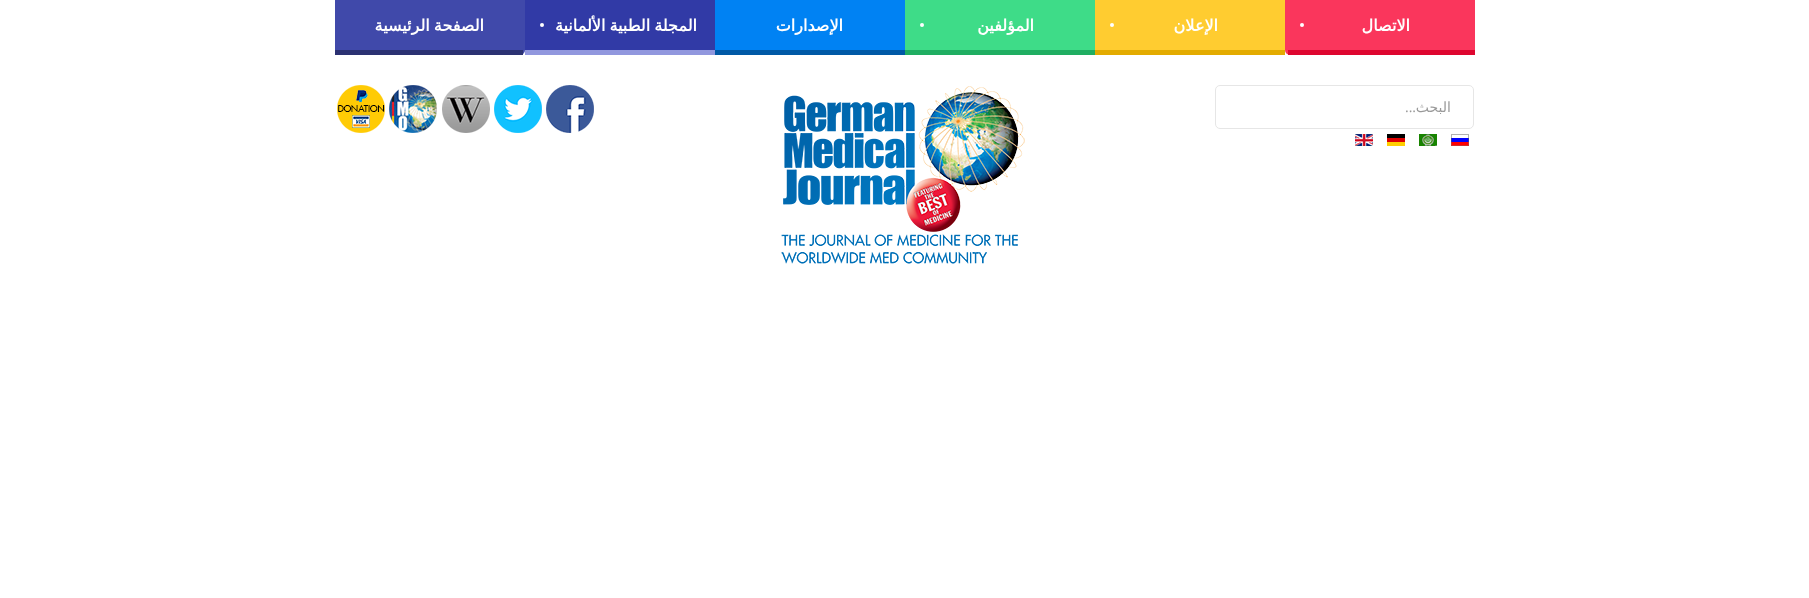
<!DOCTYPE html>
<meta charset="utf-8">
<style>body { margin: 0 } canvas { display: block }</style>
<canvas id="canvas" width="1809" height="598"></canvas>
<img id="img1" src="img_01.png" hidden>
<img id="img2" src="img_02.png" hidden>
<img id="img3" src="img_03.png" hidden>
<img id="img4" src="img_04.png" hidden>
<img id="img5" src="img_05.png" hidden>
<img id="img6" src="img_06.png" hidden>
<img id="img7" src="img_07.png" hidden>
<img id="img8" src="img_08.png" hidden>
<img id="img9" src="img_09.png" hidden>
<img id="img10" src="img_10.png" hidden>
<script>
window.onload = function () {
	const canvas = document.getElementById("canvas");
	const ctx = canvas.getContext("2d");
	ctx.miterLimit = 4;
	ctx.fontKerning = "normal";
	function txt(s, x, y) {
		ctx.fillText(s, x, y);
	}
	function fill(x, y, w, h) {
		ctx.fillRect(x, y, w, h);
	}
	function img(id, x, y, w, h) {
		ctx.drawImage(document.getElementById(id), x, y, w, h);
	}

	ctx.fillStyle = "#FFFFFF";
	fill(0, 0, 1809, 598);
	ctx.fillStyle = "#FA365C";
	ctx.beginPath();
	ctx.roundRect(1285, 0, 190, 55, [0, 0, 0, 5]);
	ctx.fill();
	ctx.fillStyle = "#DE062F";
	fill(1288, 50, 187, 5);
	ctx.fillStyle = "#FFFFFF";
	ctx.beginPath();
	ctx.arc(1302, 25, 2, 0, Math.PI * 2);
	ctx.fill();
	ctx.fillStyle = "#FFCC30";
	fill(1095, 0, 190, 50);
	ctx.fillStyle = "#E3AB00";
	fill(1095, 50, 190, 5);
	ctx.fillStyle = "#FFFFFF";
	ctx.beginPath();
	ctx.arc(1112, 25, 2, 0, Math.PI * 2);
	ctx.fill();
	ctx.fillStyle = "#3EDC88";
	fill(905, 0, 190, 50);
	ctx.fillStyle = "#20AE62";
	fill(905, 50, 190, 5);
	ctx.fillStyle = "#FFFFFF";
	ctx.beginPath();
	ctx.arc(922, 25, 2, 0, Math.PI * 2);
	ctx.fill();
	ctx.fillStyle = "#0082F3";
	fill(715, 0, 190, 50);
	ctx.fillStyle = "#0059A6";
	fill(715, 50, 190, 5);
	ctx.fillStyle = "#313AA6";
	fill(525, 0, 190, 50);
	ctx.fillStyle = "#9197DE";
	fill(525, 50, 190, 5);
	ctx.fillStyle = "#FFFFFF";
	ctx.beginPath();
	ctx.arc(542, 25, 2, 0, Math.PI * 2);
	ctx.fill();
	ctx.fillStyle = "#4049AA";
	ctx.beginPath();
	ctx.roundRect(335, 0, 190, 55, [0, 0, 5, 0]);
	ctx.fill();
	ctx.fillStyle = "#2B3172";
	fill(335, 50, 188, 5);
	ctx.beginPath();
	ctx.roundRect(1215.5, 85.5, 258, 43, 4.5);
	ctx.strokeStyle = "#E6E6E6";
	ctx.stroke();
	img("img1", 1451, 134, 18, 12);
	img("img2", 1419, 134, 18, 12);
	img("img3", 1387, 134, 18, 12);
	img("img4", 1355, 134, 18, 12);
	img("img5", 781, 86, 244, 178);
	img("img6", 546, 85, 48, 48);
	img("img7", 494, 85, 48, 48);
	img("img8", 442, 85, 48, 48);
	img("img9", 389, 85, 48, 48);
	img("img10", 337, 85, 48, 48);
	ctx.direction = "rtl";
	ctx.font = "bold 16px DejaVu Sans";
	ctx.fillStyle = "#FFFFFF";
	txt("الاتصال", 1410, 31);
	txt("الإعلان", 1218, 31);
	txt("المؤلفين", 1034, 31);
	txt("الإصدارات", 843, 31);
	ctx.wordSpacing = "-1px";
	txt("المجلة الطبية الألمانية", 697, 31);
	txt("الصفحة الرئيسية", 484, 31);
	ctx.wordSpacing = "0px";
	ctx.font = "14px DejaVu Sans";
	ctx.fillStyle = "#999999";
	txt("البحث", 1451, 112);
	ctx.font = "14px Open Sans";
	txt("...", 1416, 112);
};
</script>
